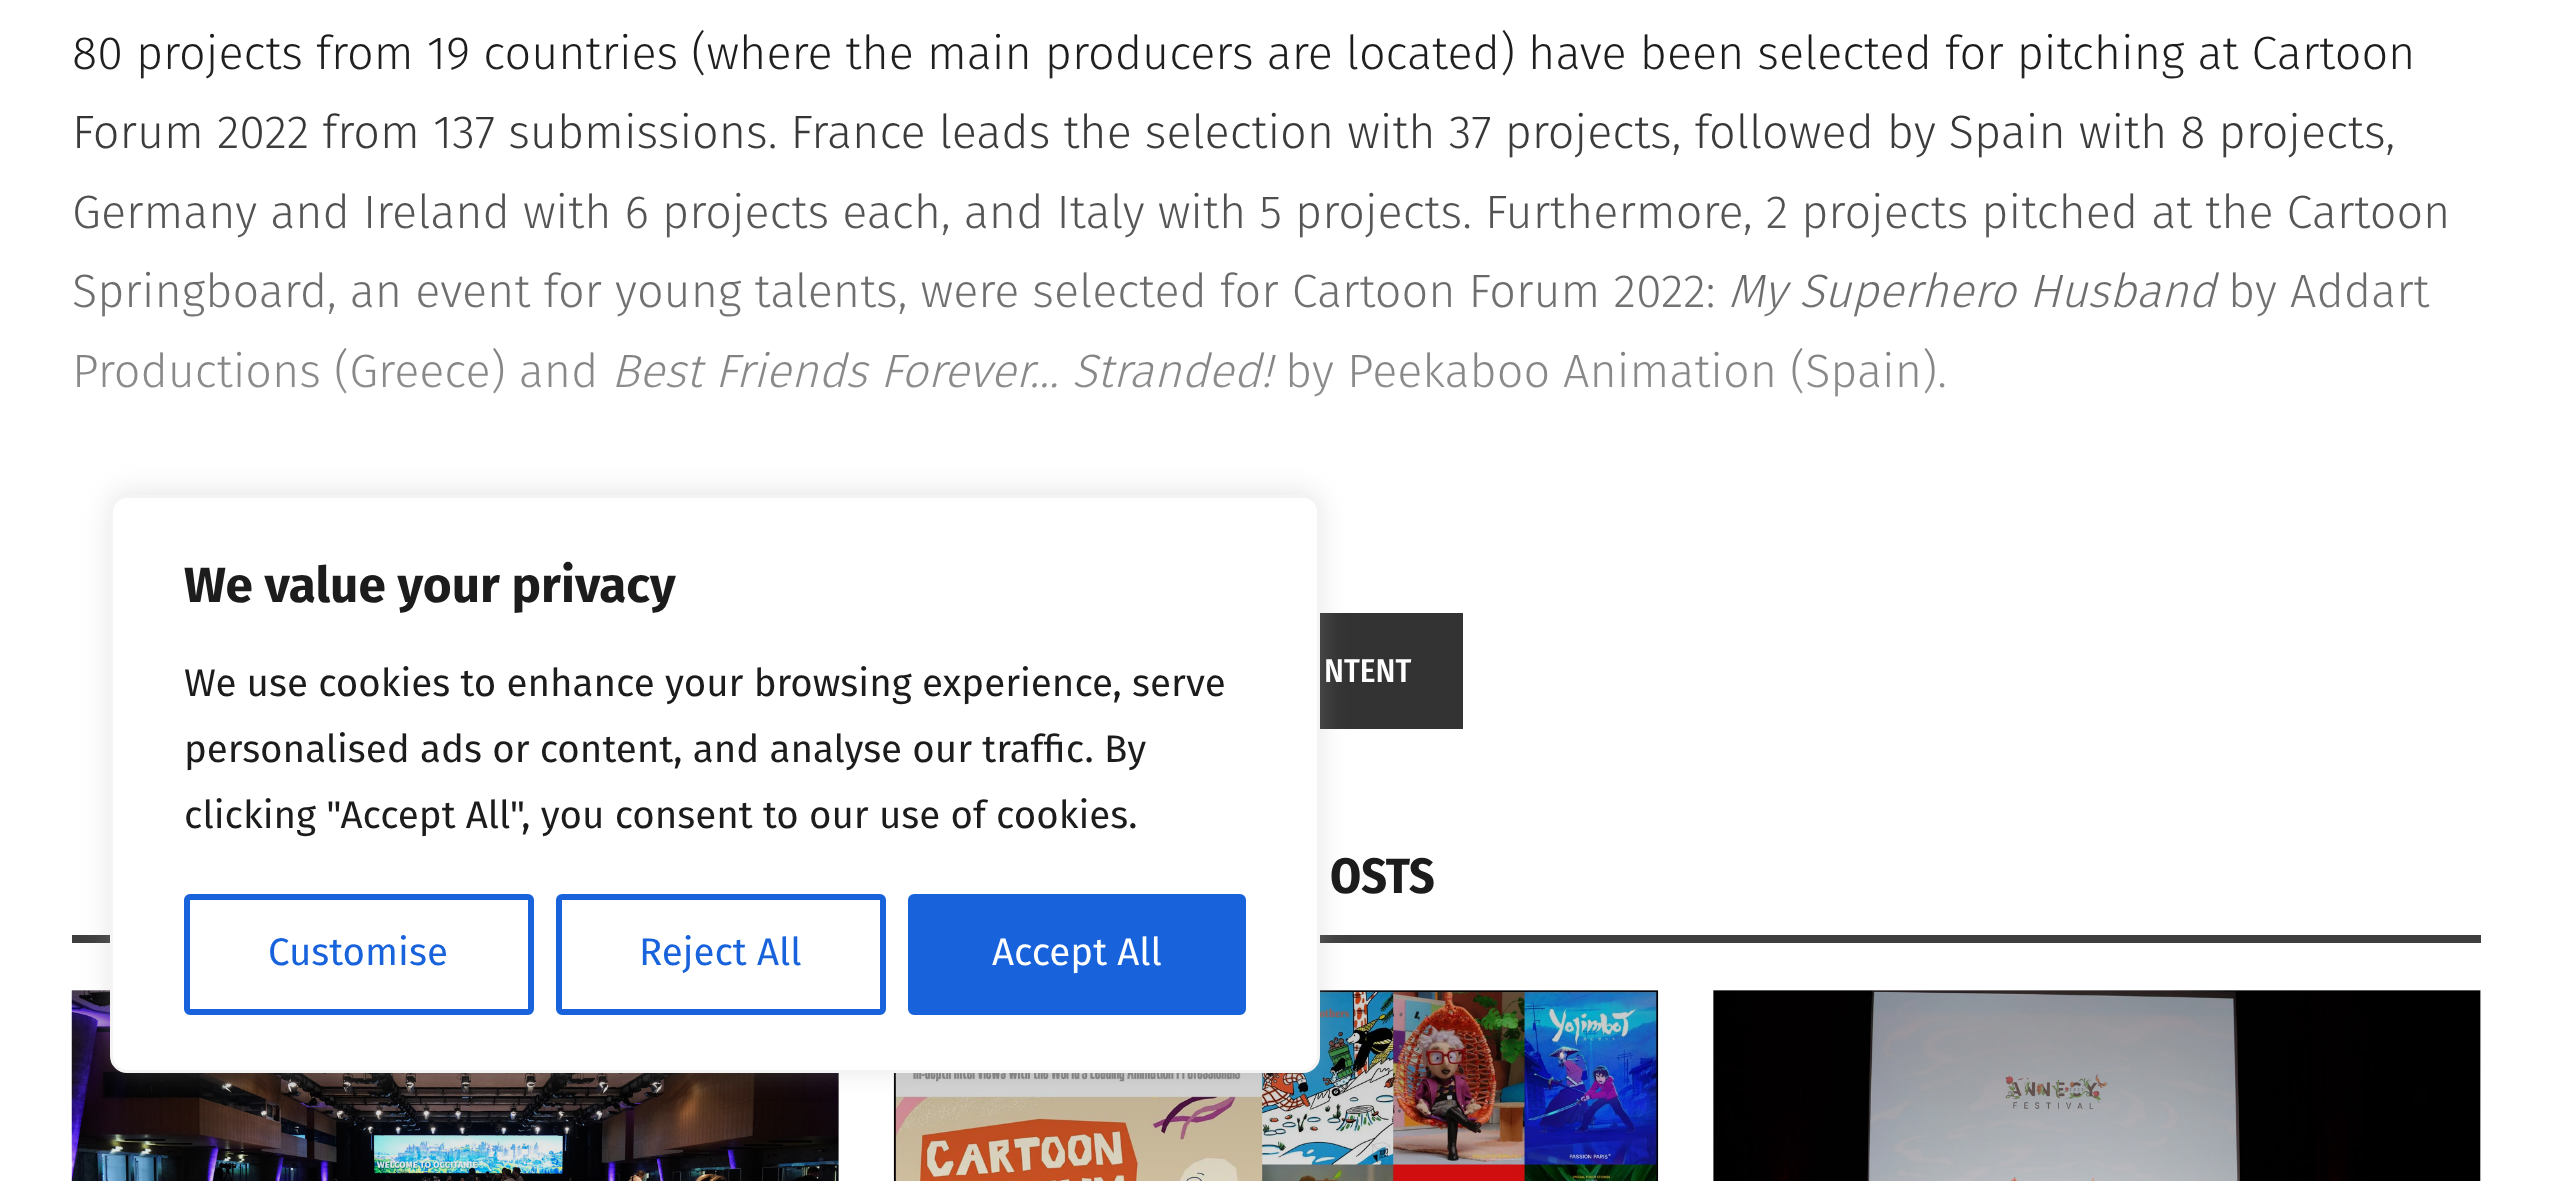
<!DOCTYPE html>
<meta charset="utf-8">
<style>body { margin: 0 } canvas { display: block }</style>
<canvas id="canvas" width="2551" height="1181"></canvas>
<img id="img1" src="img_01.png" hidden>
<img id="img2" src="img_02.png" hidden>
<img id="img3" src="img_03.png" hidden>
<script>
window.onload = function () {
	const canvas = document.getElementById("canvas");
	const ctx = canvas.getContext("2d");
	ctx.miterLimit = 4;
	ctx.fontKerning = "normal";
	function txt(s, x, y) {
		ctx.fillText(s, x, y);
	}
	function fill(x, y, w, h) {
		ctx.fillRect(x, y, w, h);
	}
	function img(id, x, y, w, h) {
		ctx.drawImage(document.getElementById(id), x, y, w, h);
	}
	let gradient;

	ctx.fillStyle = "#FFFFFF";
	fill(0, 0, 2551, 1181);
	ctx.fillStyle = "#333333";
	fill(1320, 613, 143, 116);
	ctx.fillStyle = "#3E3E3E";
	fill(72, 935, 2409, 8);
	img("img1", 71, 990, 768, 191);
	gradient = ctx.createLinearGradient(455, 990, 455, 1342);
	gradient.addColorStop(0, "rgba(0, 0, 0, 0.2)");
	gradient.addColorStop(0.08, "rgba(0, 0, 0, 0.2)");
	gradient.addColorStop(0.16, "rgba(0, 0, 0, 0.19)");
	gradient.addColorStop(0.23, "rgba(0, 0, 0, 0.17)");
	gradient.addColorStop(0.3, "rgba(0, 0, 0, 0.15)");
	gradient.addColorStop(0.37, "rgba(0, 0, 0, 0.12)");
	gradient.addColorStop(0.44, "rgba(0, 0, 0, 0.1)");
	gradient.addColorStop(0.52, "rgba(0, 0, 0, 0.08)");
	gradient.addColorStop(0.6, "rgba(0, 0, 0, 0.05)");
	gradient.addColorStop(0.68, "rgba(0, 0, 0, 0.03)");
	gradient.addColorStop(0.78, "rgba(0, 0, 0, 0.01)");
	gradient.addColorStop(0.88, "rgba(0, 0, 0, 0)");
	gradient.addColorStop(1, "rgba(0, 0, 0, 0)");
	ctx.fillStyle = gradient;
	fill(72, 990, 767, 191);
	img("img2", 893, 990, 766, 191);
	gradient = ctx.createLinearGradient(1276, 990, 1276, 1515);
	gradient.addColorStop(0, "rgba(0, 0, 0, 0.2)");
	gradient.addColorStop(0.08, "rgba(0, 0, 0, 0.2)");
	gradient.addColorStop(0.16, "rgba(0, 0, 0, 0.19)");
	gradient.addColorStop(0.23, "rgba(0, 0, 0, 0.17)");
	gradient.addColorStop(0.3, "rgba(0, 0, 0, 0.15)");
	gradient.addColorStop(0.37, "rgba(0, 0, 0, 0.12)");
	gradient.addColorStop(0.44, "rgba(0, 0, 0, 0.1)");
	gradient.addColorStop(0.52, "rgba(0, 0, 0, 0.08)");
	gradient.addColorStop(0.6, "rgba(0, 0, 0, 0.05)");
	gradient.addColorStop(0.68, "rgba(0, 0, 0, 0.03)");
	gradient.addColorStop(0.78, "rgba(0, 0, 0, 0.01)");
	gradient.addColorStop(0.88, "rgba(0, 0, 0, 0)");
	gradient.addColorStop(1, "rgba(0, 0, 0, 0)");
	ctx.fillStyle = gradient;
	fill(894, 990, 764, 191);
	img("img3", 1713, 990, 768, 191);
	gradient = ctx.createLinearGradient(2097, 990, 2097, 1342);
	gradient.addColorStop(0, "rgba(0, 0, 0, 0.2)");
	gradient.addColorStop(0.08, "rgba(0, 0, 0, 0.2)");
	gradient.addColorStop(0.16, "rgba(0, 0, 0, 0.19)");
	gradient.addColorStop(0.23, "rgba(0, 0, 0, 0.17)");
	gradient.addColorStop(0.3, "rgba(0, 0, 0, 0.15)");
	gradient.addColorStop(0.37, "rgba(0, 0, 0, 0.12)");
	gradient.addColorStop(0.44, "rgba(0, 0, 0, 0.1)");
	gradient.addColorStop(0.52, "rgba(0, 0, 0, 0.08)");
	gradient.addColorStop(0.6, "rgba(0, 0, 0, 0.05)");
	gradient.addColorStop(0.68, "rgba(0, 0, 0, 0.03)");
	gradient.addColorStop(0.78, "rgba(0, 0, 0, 0.01)");
	gradient.addColorStop(0.88, "rgba(0, 0, 0, 0)");
	gradient.addColorStop(1, "rgba(0, 0, 0, 0)");
	ctx.fillStyle = gradient;
	fill(1713, 990, 768, 191);
	ctx.fillStyle = "rgba(172, 171, 171, 0.3)";
	ctx.filter = "blur(14px)";
	ctx.beginPath();
	ctx.roundRect(110, 492, 1210, 578, 17);
	ctx.fill();
	ctx.filter = "none";
	ctx.fillStyle = "#FFFFFF";
	ctx.beginPath();
	ctx.roundRect(111.5, 496.5, 1207, 575, 15.5);
	ctx.fill();
	ctx.strokeStyle = "#F4F4F4";
	ctx.lineWidth = 3;
	ctx.stroke();
	ctx.beginPath();
	ctx.roundRect(187, 897, 344, 115, 3);
	ctx.strokeStyle = "#1863DC";
	ctx.lineWidth = 6;
	ctx.stroke();
	ctx.beginPath();
	ctx.roundRect(559, 897, 324, 115, 3);
	ctx.stroke();
	ctx.fillStyle = "#1863DC";
	ctx.beginPath();
	ctx.roundRect(911, 897, 332, 115, 3);
	ctx.fill();
	ctx.stroke();
	ctx.font = "300 46.75px Fira Sans";
	ctx.fillStyle = "#1C1C1C";
	txt("80 projects from 19 countries (where the main producers are located) have been selected for pitching at Cartoon", 72, 69);
	txt("Forum 2022 from 137 submissions. France leads the selection with 37 projects, followed by Spain with 8 projects,", 72, 148);
	txt("Germany and Ireland with 6 projects each, and Italy with 5 projects. Furthermore, 2 projects pitched at the Cartoon", 72, 228);
	txt("Springboard, an event for young talents, were selected for Cartoon Forum 2022:", 72, 307);
	ctx.font = "italic 300 46.75px Fira Sans";
	txt("My Superhero Husband", 1728, 307);
	ctx.font = "300 46.75px Fira Sans";
	txt("by Addart", 2228, 307);
	txt("Productions (Greece) and", 72, 387);
	ctx.font = "italic 300 46.75px Fira Sans";
	txt("Best Friends Forever… Stranded!", 611, 387);
	ctx.font = "300 46.75px Fira Sans";
	txt("by Peekaboo Animation (Spain).", 1285, 387);
	gradient = ctx.createLinearGradient(1276, 732, 1276, 44);
	gradient.addColorStop(0, "#FFFFFF");
	gradient.addColorStop(1, "rgba(255, 255, 255, 0)");
	ctx.fillStyle = gradient;
	fill(73, 59, 2373, 338);
	ctx.font = "500 33px Fira Sans Condensed";
	ctx.fillStyle = "#FFFFFF";
	txt("NTENT", 1324, 682);
	ctx.font = "bold 49.5px Fira Sans Condensed";
	ctx.fillStyle = "#1C1C1C";
	txt("OSTS", 1330, 893);
	ctx.font = "bold 49.5px Fira Sans";
	txt("We value your privacy", 184, 602);
	ctx.font = "38.5px Fira Sans";
	txt("We use cookies to enhance your browsing experience, serve", 184, 696);
	txt("personalised ads or content, and analyse our traffic. By", 184, 762);
	txt("clicking \"Accept All\", you consent to our use of cookies.", 184, 828);
	ctx.fillStyle = "#1863DC";
	txt("Customise", 268, 965);
	txt("Reject All", 639, 965);
	ctx.fillStyle = "#FFFFFF";
	txt("Accept All", 992, 965);
};
</script>
